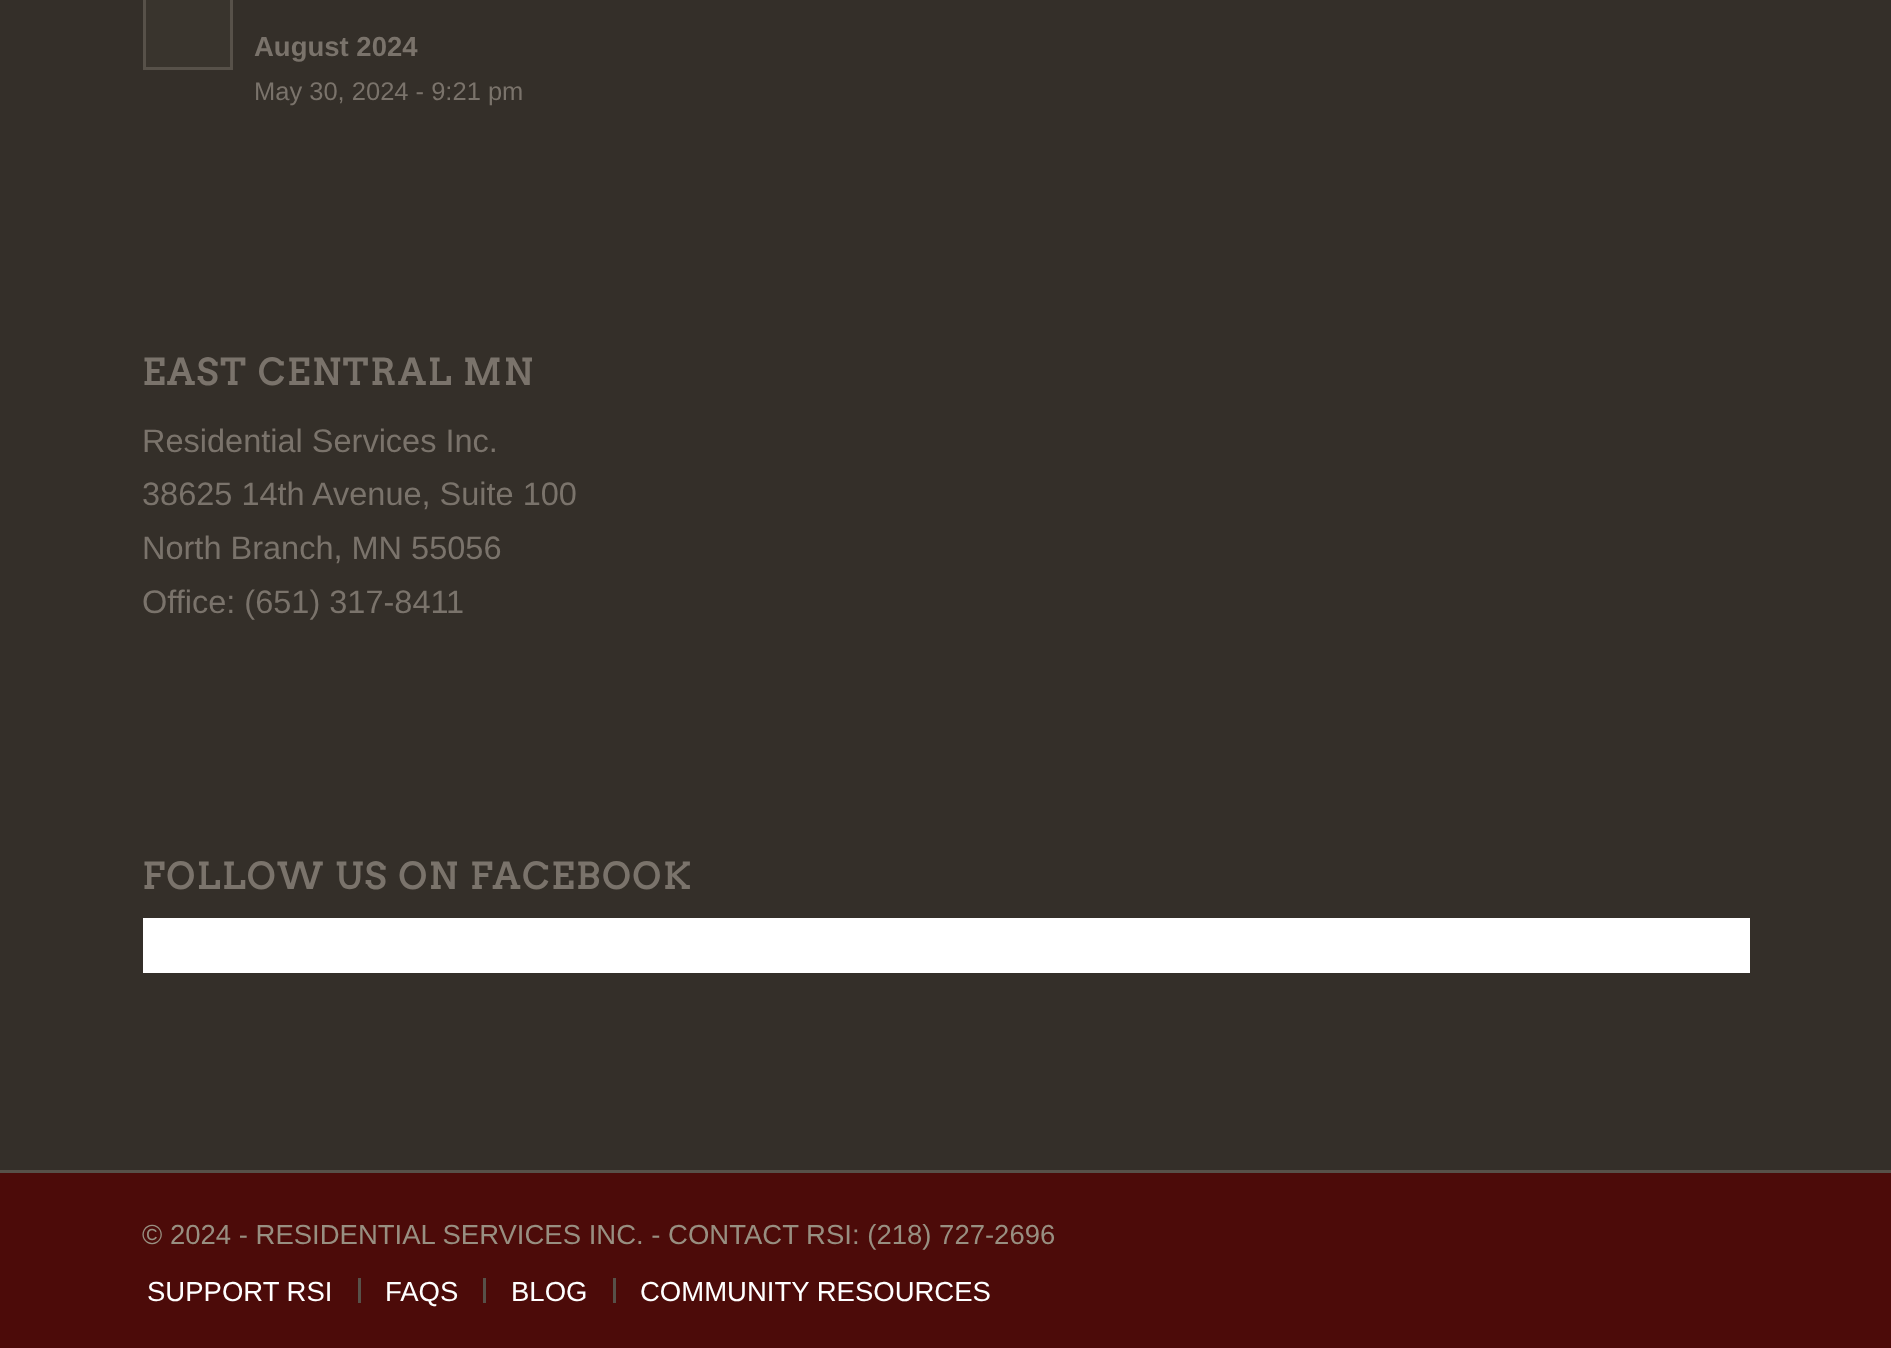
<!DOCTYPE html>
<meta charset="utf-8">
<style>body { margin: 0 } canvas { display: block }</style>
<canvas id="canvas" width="1891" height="1348"></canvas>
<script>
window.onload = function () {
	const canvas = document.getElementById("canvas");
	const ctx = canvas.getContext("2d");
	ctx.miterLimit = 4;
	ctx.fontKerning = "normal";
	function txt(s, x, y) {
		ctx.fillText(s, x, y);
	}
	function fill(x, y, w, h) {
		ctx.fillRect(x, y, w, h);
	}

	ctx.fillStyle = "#342F29";
	fill(0, 0, 1891, 1348);
	ctx.fillStyle = "#39342D";
	ctx.beginPath();
	ctx.rect(144.5, -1.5, 87, 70);
	ctx.fill();
	ctx.strokeStyle = "#575149";
	ctx.lineWidth = 3;
	ctx.stroke();
	ctx.fillStyle = "#FFFFFF";
	fill(143, 918, 1607, 55);
	ctx.fillStyle = "#4C0B09";
	fill(0, 1173, 1891, 175);
	ctx.fillStyle = "#575149";
	fill(0, 1170, 1891, 3);
	fill(358, 1278, 3, 25);
	fill(483, 1278, 3, 25);
	fill(613, 1278, 3, 25);
	ctx.font = "bold 27.5px Liberation Sans";
	ctx.fillStyle = "#7A736B";
	txt("August 2024", 254, 56);
	ctx.font = "25.5px Liberation Sans";
	txt("May 30, 2024 - 9:21 pm", 254, 100);
	ctx.letterSpacing = "2.5px";
	ctx.font = "bold 35.75px Arvo";
	txt("EAST CENTRAL MN", 142, 385);
	ctx.letterSpacing = "0px";
	ctx.font = "32.5px Liberation Sans";
	txt("Residential Services Inc.", 142, 452);
	txt("38625 14th Avenue, Suite 100", 142, 505);
	txt("North Branch, MN 55056", 142, 559);
	txt("Office: (651) 317-8411", 142, 613);
	ctx.letterSpacing = "2.5px";
	ctx.font = "bold 35.75px Arvo";
	txt("FOLLOW US ON FACEBOOK", 142, 889);
	ctx.letterSpacing = "0px";
	ctx.font = "27.5px Liberation Sans";
	ctx.fillStyle = "#988F81";
	txt("© 2024 - RESIDENTIAL SERVICES INC. - CONTACT RSI: (218) 727-2696", 142, 1244);
	ctx.fillStyle = "#FFFFFF";
	txt("SUPPORT RSI", 147, 1301);
	txt("FAQS", 385, 1301);
	txt("BLOG", 511, 1301);
	txt("COMMUNITY RESOURCES", 640, 1301);
};
</script>
